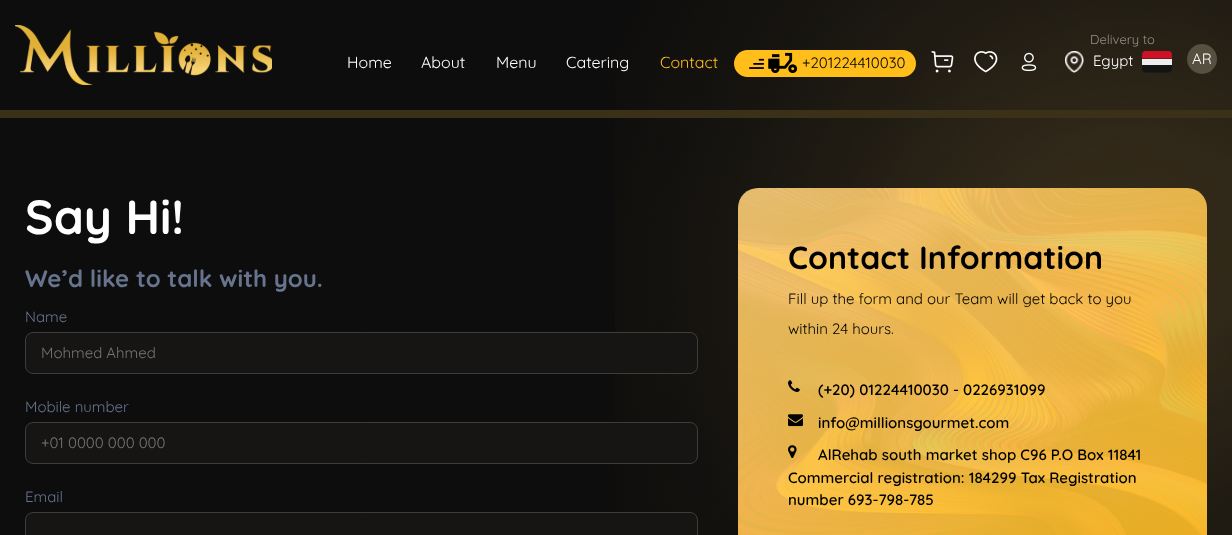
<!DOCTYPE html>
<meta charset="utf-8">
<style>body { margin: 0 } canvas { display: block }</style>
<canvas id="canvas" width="1232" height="535"></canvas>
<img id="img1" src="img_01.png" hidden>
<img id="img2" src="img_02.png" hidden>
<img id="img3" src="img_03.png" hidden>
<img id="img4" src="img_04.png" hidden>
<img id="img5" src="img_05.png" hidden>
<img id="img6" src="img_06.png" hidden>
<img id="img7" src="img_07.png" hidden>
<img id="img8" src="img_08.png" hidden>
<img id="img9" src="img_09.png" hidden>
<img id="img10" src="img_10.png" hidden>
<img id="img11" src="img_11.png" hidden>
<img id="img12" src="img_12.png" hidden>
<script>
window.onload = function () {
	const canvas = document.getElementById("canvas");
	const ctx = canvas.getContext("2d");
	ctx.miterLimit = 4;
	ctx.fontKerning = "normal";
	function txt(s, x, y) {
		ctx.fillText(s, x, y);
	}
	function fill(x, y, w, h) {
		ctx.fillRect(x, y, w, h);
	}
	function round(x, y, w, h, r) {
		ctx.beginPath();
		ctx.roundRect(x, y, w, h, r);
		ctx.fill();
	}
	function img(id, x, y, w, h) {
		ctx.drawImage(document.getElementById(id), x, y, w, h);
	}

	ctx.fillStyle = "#0D0D0D";
	fill(0, 0, 1232, 535);
	img("img1", 615, 0, 617, 535);
	ctx.fillStyle = "#3B3119";
	fill(0, 110, 1232, 8);
	img("img2", 15, 25, 257, 60);
	ctx.fillStyle = "#FFBE1A";
	round(734, 50, 182, 27, 13.5);
	img("img3", 749, 52, 48, 21);
	img("img4", 931, 51, 23, 22);
	img("img5", 974, 51, 24, 22);
	img("img6", 1021, 52, 16, 20);
	img("img7", 1065, 51, 19, 22);
	img("img8", 1142, 51, 30, 22);
	ctx.fillStyle = "#565041";
	ctx.beginPath();
	ctx.arc(1202, 59, 15, 0, Math.PI * 2);
	ctx.fill();
	ctx.fillStyle = "#171513";
	ctx.beginPath();
	ctx.roundRect(25.5, 332.5, 672, 41, 7.5);
	ctx.fill();
	ctx.strokeStyle = "#3E3D3D";
	ctx.stroke();
	ctx.beginPath();
	ctx.roundRect(25.5, 422.5, 672, 41, 7.5);
	ctx.fill();
	ctx.stroke();
	ctx.beginPath();
	ctx.roundRect(25.5, 512.5, 672, 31, 7.5);
	ctx.fill();
	ctx.stroke();
	img("img9", 738, 188, 469, 347);
	img("img10", 788, 380, 12, 12);
	img("img11", 788, 414, 15, 13);
	img("img12", 788, 445, 9, 13);
	ctx.font = "16px Quicksand";
	ctx.fillStyle = "#FFFFFF";
	txt("Home", 347, 68);
	txt("About", 421, 68);
	txt("Menu", 496, 68);
	txt("Catering", 566, 68);
	ctx.fillStyle = "#FFBE1A";
	txt("Contact", 660, 68);
	ctx.font = "15px Quicksand";
	ctx.fillStyle = "#000000";
	txt("+201224410030", 802, 68);
	ctx.font = "13px Quicksand";
	ctx.fillStyle = "#93908A";
	txt("Delivery to", 1090, 44);
	ctx.font = "15px Quicksand";
	ctx.fillStyle = "#FFFFFF";
	txt("Egypt", 1093, 66);
	txt("AR", 1192, 64);
	ctx.font = "bold 48px Quicksand";
	txt("Say Hi!", 25, 234);
	ctx.font = "bold 24px Quicksand";
	ctx.fillStyle = "#67748E";
	txt("We’d like to talk with you.", 25, 287);
	ctx.font = "15px Quicksand";
	txt("Name", 25, 322);
	ctx.fillStyle = "#757575";
	txt("Mohmed Ahmed", 41, 358);
	ctx.fillStyle = "#67748E";
	txt("Mobile number", 25, 412);
	ctx.fillStyle = "#757575";
	txt("+01 0000 000 000", 41, 448);
	ctx.fillStyle = "#67748E";
	txt("Email", 25, 502);
	ctx.font = "bold 32px Quicksand";
	ctx.fillStyle = "#000000";
	txt("Contact Information", 788, 269);
	ctx.font = "15px Quicksand";
	txt("Fill up the form and our Team will get back to you", 788, 304);
	txt("within 24 hours.", 788, 334);
	ctx.font = "600 15px Quicksand";
	txt("(+20) 01224410030 - 0226931099", 818, 395);
	txt("info@millionsgourmet.com", 818, 428);
	txt("AlRehab south market shop C96 P.O Box 11841", 818, 460);
	txt("Commercial registration: 184299 Tax Registration", 788, 483);
	txt("number 693-798-785", 788, 505);
};
</script>
